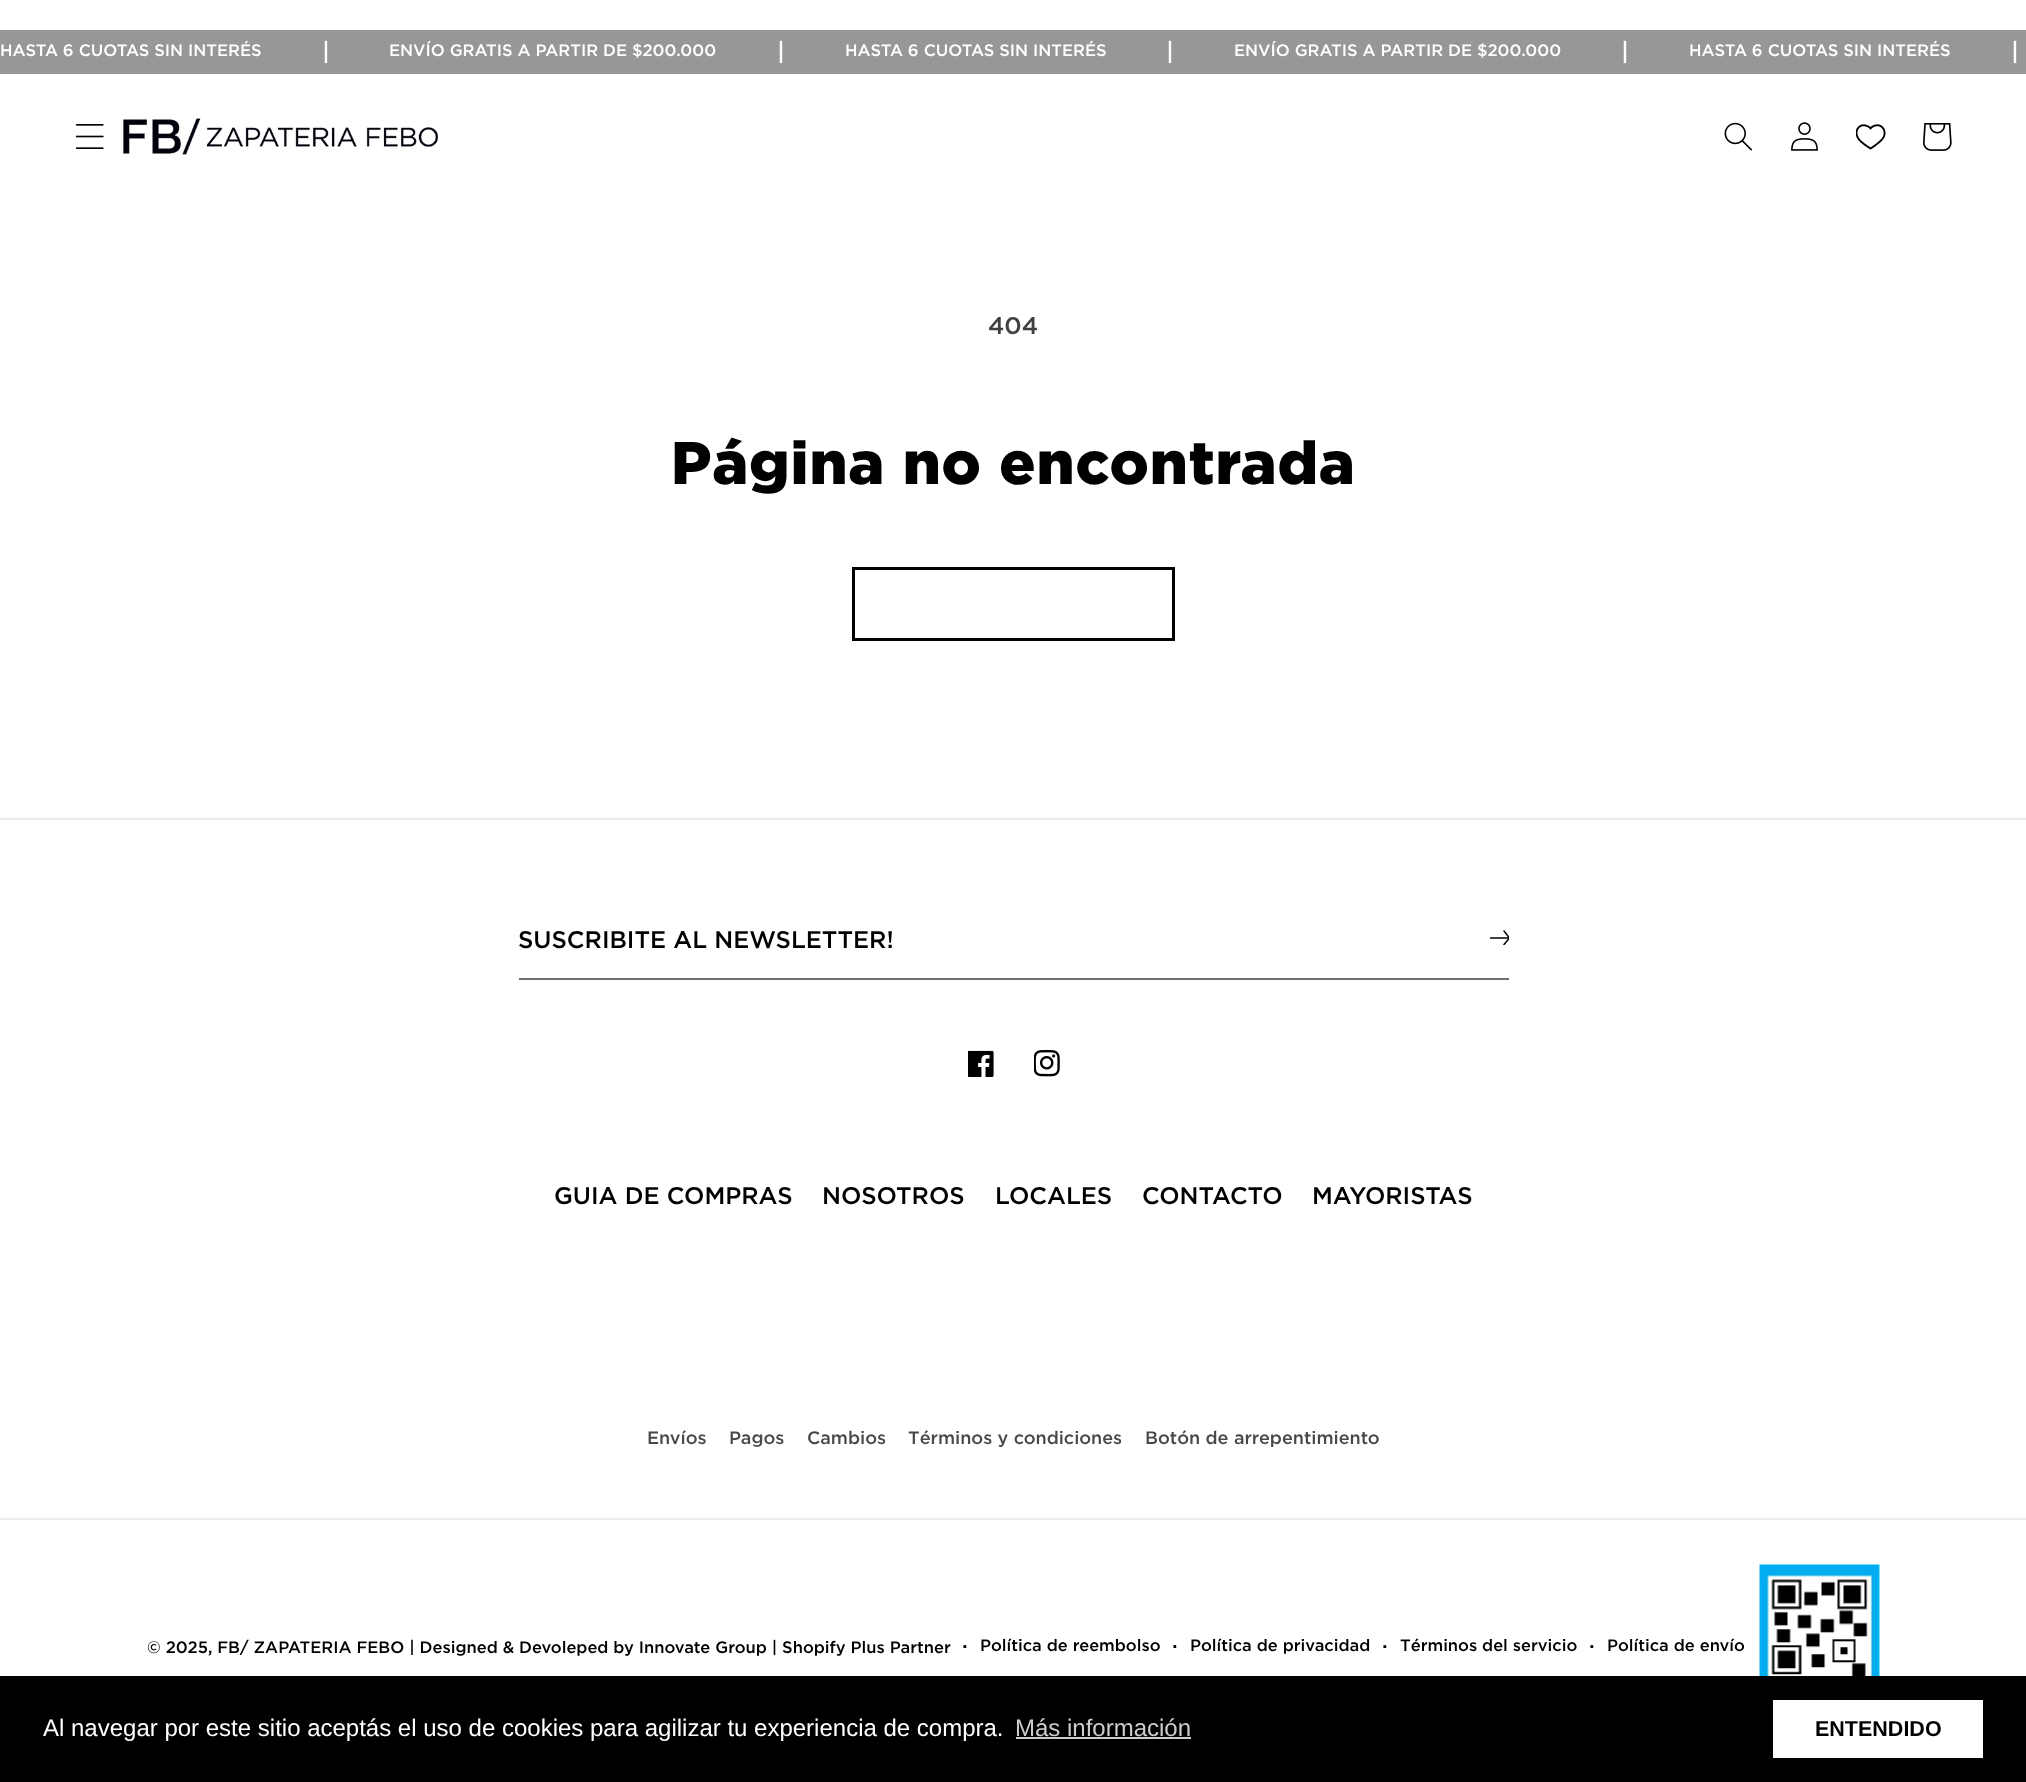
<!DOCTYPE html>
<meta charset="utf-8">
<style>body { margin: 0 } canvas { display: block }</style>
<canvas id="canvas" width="2026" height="1782"></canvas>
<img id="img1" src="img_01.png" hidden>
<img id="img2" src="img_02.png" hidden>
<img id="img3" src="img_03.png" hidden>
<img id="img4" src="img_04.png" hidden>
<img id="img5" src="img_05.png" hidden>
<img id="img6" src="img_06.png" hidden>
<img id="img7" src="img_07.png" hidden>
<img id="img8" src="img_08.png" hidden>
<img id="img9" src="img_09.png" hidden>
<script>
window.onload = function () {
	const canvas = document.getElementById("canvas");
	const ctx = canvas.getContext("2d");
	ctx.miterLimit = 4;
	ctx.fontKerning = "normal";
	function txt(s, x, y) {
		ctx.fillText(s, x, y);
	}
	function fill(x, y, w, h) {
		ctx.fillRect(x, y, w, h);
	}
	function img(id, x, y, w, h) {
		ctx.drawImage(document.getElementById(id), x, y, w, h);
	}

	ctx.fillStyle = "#FFFFFF";
	fill(0, 0, 2026, 1782);
	ctx.fillStyle = "#979797";
	fill(0, 30, 2026, 44);
	img("img1", 75, 124, 29, 25);
	img("img2", 123, 118, 315, 37);
	img("img3", 1724, 122, 28, 29);
	img("img4", 1791, 122, 27, 29);
	img("img5", 1856, 124, 30, 26);
	img("img6", 1923, 123, 29, 28);
	ctx.strokeStyle = "#000000";
	ctx.lineWidth = 3;
	ctx.strokeRect(853.5, 568.5, 320, 71);
	ctx.fillStyle = "#EBEBEB";
	fill(0, 818, 2026, 2);
	ctx.fillStyle = "#707070";
	fill(519, 978, 990, 2);
	ctx.save();
	ctx.beginPath();
	ctx.rect(1490, 930, 19, 15);
	ctx.clip();
	ctx.beginPath();
	ctx.moveTo(1504, 931);
	ctx.lineTo(1509.5, 938);
	ctx.lineTo(1504, 944.5);
	ctx.moveTo(1509.5, 938);
	ctx.lineTo(1490.5, 938);
	ctx.lineWidth = 1.5;
	ctx.lineCap = "round";
	ctx.lineJoin = "round";
	ctx.stroke();
	ctx.restore();
	img("img7", 968, 1050, 26, 27);
	img("img8", 1034, 1050, 26, 27);
	ctx.fillStyle = "#EBEBEB";
	fill(0, 1518, 2026, 2);
	img("img9", 1759, 1564, 121, 112);
	ctx.fillStyle = "#000000";
	fill(0, 1676, 2026, 106);
	ctx.fillStyle = "#CCCCCC";
	fill(1016, 1737, 175, 2);
	ctx.fillStyle = "#FFFFFF";
	fill(1773, 1700, 210, 58);
	ctx.font = "500 16.5px Gotham";
	txt("HASTA 6 CUOTAS SIN INTERÉS", 0, 56);
	ctx.font = "500 24px Gotham";
	txt("|", 322, 60);
	ctx.font = "500 16.5px Gotham";
	txt("ENVÍO GRATIS A PARTIR DE $200.000", 389, 56);
	ctx.font = "500 24px Gotham";
	txt("|", 777, 60);
	ctx.font = "500 16.5px Gotham";
	txt("HASTA 6 CUOTAS SIN INTERÉS", 845, 56);
	ctx.font = "500 24px Gotham";
	txt("|", 1166, 60);
	ctx.font = "500 16.5px Gotham";
	txt("ENVÍO GRATIS A PARTIR DE $200.000", 1234, 56);
	ctx.font = "500 24px Gotham";
	txt("|", 1621, 60);
	ctx.font = "500 16.5px Gotham";
	txt("HASTA 6 CUOTAS SIN INTERÉS", 1689, 56);
	ctx.font = "500 24px Gotham";
	txt("|", 2011, 60);
	ctx.fillStyle = "#404040";
	txt("404", 988, 334);
	ctx.letterSpacing = "0.9px";
	ctx.font = "900 60px Gotham";
	ctx.fillStyle = "#000000";
	txt("Página no encontrada", 671, 484);
	ctx.letterSpacing = "0px";
	ctx.font = "500 24px Gotham";
	txt("SUSCRIBITE AL NEWSLETTER!", 518, 948);
	txt("GUIA DE COMPRAS", 554, 1204);
	txt("NOSOTROS", 822, 1204);
	txt("LOCALES", 995, 1204);
	txt("CONTACTO", 1142, 1204);
	txt("MAYORISTAS", 1312, 1204);
	ctx.font = "500 18px Gotham";
	ctx.fillStyle = "#494949";
	txt("Envíos", 647, 1444);
	txt("Pagos", 729, 1444);
	txt("Cambios", 807, 1444);
	txt("Términos y condiciones", 908, 1444);
	txt("Botón de arrepentimiento", 1145, 1444);
	ctx.font = "500 16.5px Gotham";
	ctx.fillStyle = "#000000";
	txt("© 2025, FB/ ZAPATERIA FEBO | Designed & Devoleped by Innovate Group | Shopify Plus Partner", 147, 1653);
	ctx.font = "500 21px Gotham";
	txt("·", 962, 1653);
	ctx.font = "500 16.5px Gotham";
	txt("Política de reembolso", 980, 1651);
	ctx.font = "500 21px Gotham";
	txt("·", 1172, 1653);
	ctx.font = "500 16.5px Gotham";
	txt("Política de privacidad", 1190, 1651);
	ctx.font = "500 21px Gotham";
	txt("·", 1382, 1653);
	ctx.font = "500 16.5px Gotham";
	txt("Términos del servicio", 1400, 1651);
	ctx.font = "500 21px Gotham";
	txt("·", 1589, 1653);
	ctx.font = "500 16.5px Gotham";
	txt("Política de envío", 1607, 1651);
	ctx.font = "24px Liberation Sans";
	ctx.fillStyle = "#FFFFFF";
	txt("Al navegar por este sitio aceptás el uso de cookies para agilizar tu experiencia de compra.", 43, 1736);
	ctx.fillStyle = "#CCCCCC";
	txt("Más información", 1015, 1736);
	ctx.font = "bold 21.5px Liberation Sans";
	ctx.fillStyle = "#000000";
	txt("ENTENDIDO", 1815, 1736);
};
</script>
